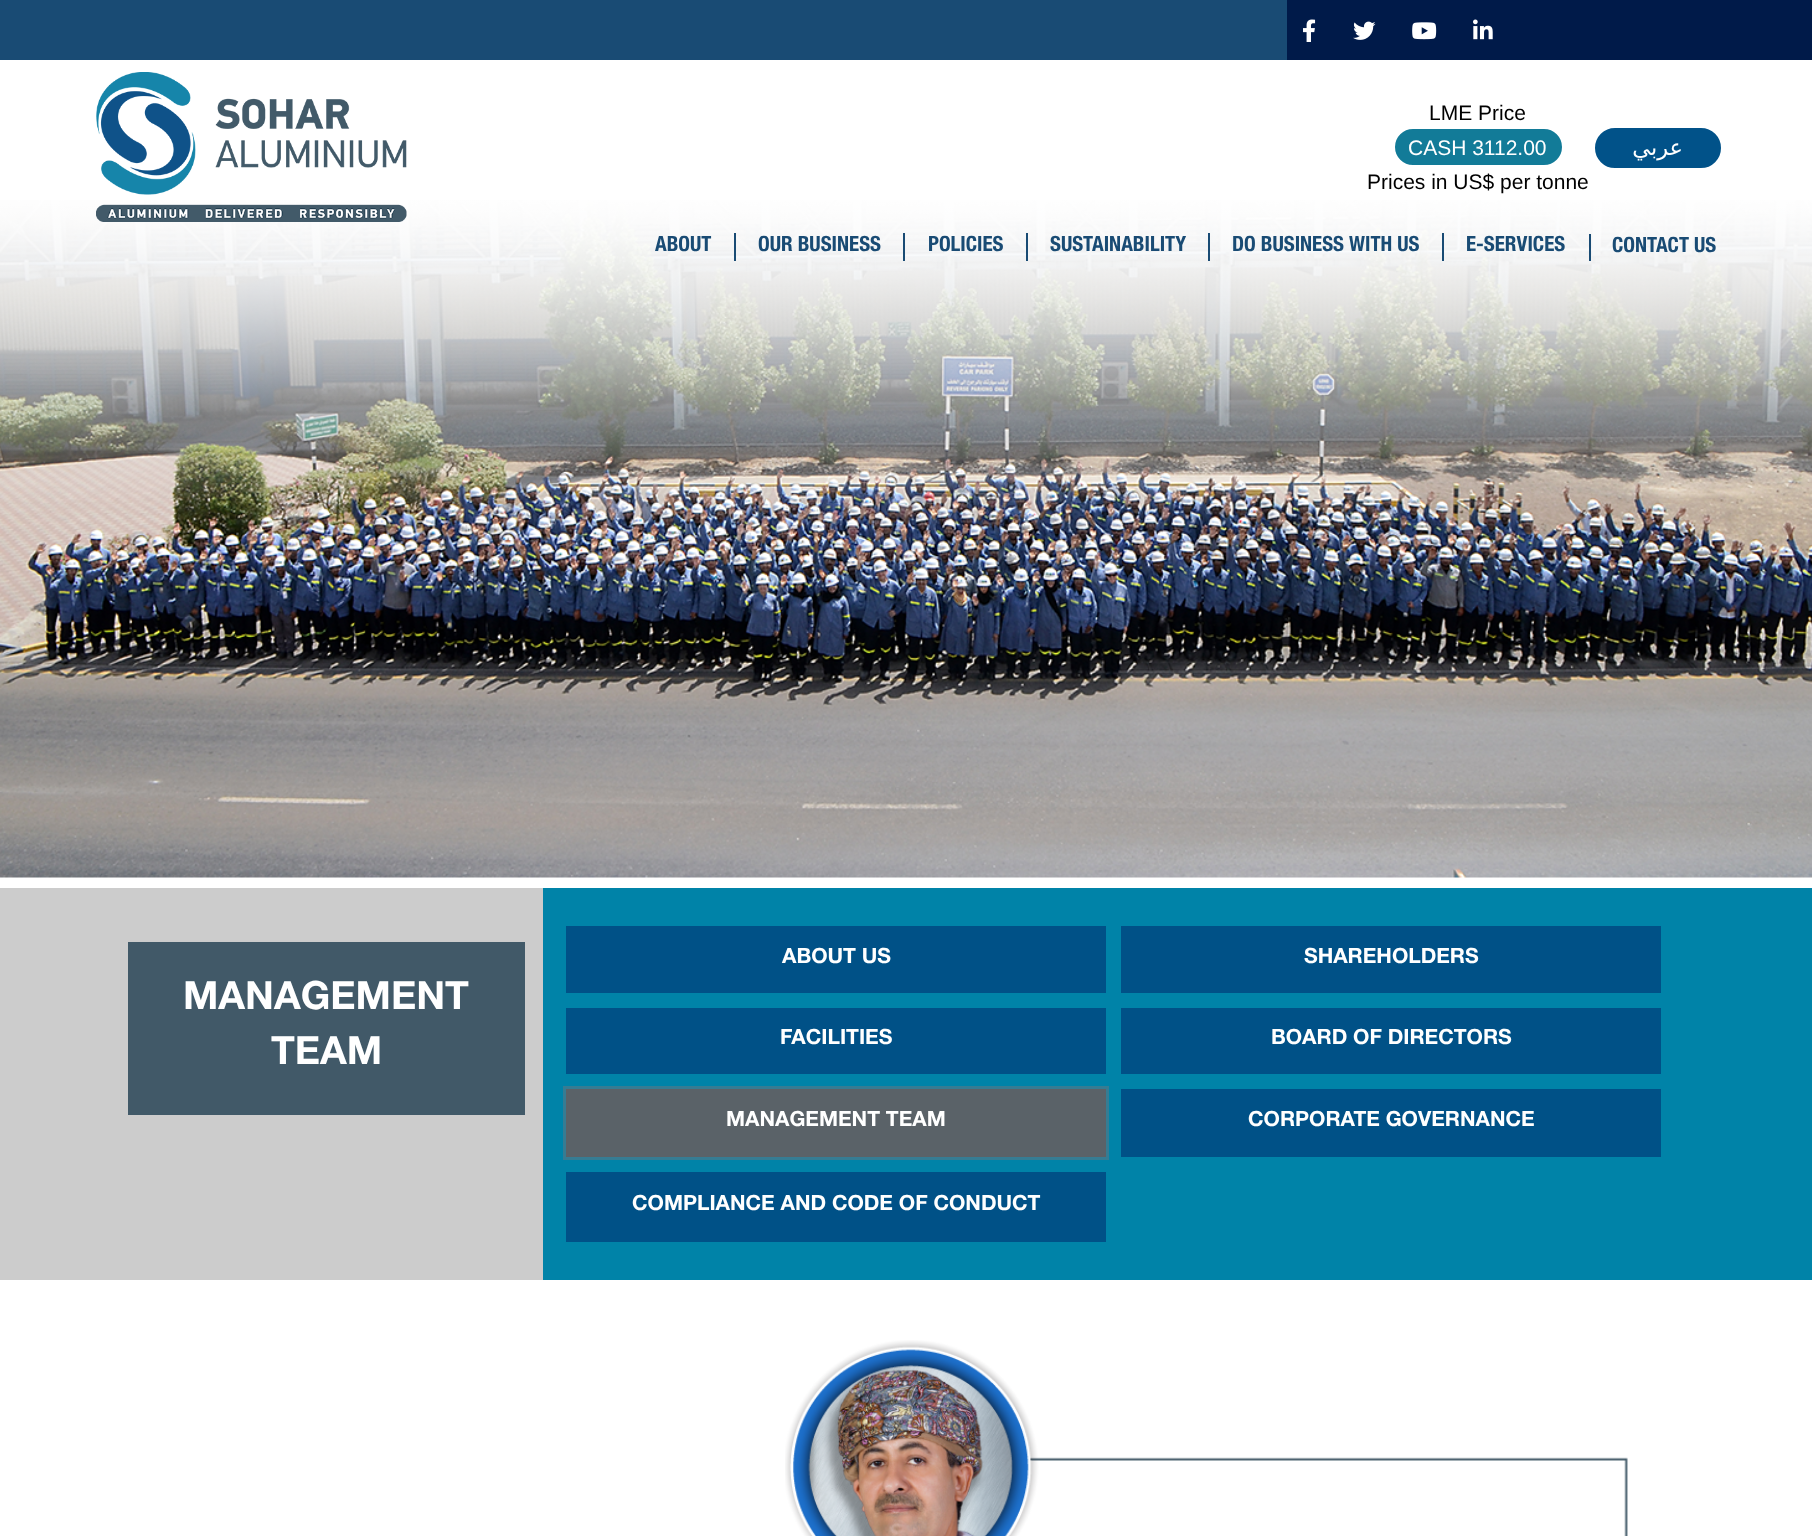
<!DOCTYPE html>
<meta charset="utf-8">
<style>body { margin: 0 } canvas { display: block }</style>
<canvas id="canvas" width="1812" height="1536"></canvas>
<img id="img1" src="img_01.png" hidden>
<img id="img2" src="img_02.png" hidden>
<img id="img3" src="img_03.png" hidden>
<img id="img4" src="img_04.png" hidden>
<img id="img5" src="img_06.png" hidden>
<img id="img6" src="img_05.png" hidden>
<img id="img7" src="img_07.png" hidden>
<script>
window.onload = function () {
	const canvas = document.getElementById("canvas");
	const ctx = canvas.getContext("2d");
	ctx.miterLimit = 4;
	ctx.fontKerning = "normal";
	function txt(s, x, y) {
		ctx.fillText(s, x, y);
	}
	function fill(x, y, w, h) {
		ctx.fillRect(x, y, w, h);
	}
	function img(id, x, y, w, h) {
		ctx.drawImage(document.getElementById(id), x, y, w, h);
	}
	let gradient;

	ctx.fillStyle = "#FFFFFF";
	fill(0, 0, 1812, 1536);
	ctx.fillStyle = "#194B74";
	fill(0, 0, 1287, 60);
	ctx.fillStyle = "#001A49";
	fill(1287, 0, 525, 60);
	img("img1", 1303, 19, 13, 23);
	img("img2", 1353, 21, 23, 19);
	img("img3", 1412, 22, 25, 18);
	img("img4", 1473, 19, 20, 21);
	img("img5", 0, 200, 1812, 678);
	gradient = ctx.createLinearGradient(906, 60, 906, 510);
	gradient.addColorStop(0, "#FFFFFF");
	gradient.addColorStop(0.25, "rgba(255, 255, 255, 0.75)");
	gradient.addColorStop(0.6, "rgba(255, 255, 255, 0.4)");
	gradient.addColorStop(0.7, "rgba(255, 255, 255, 0.3)");
	gradient.addColorStop(1, "rgba(255, 255, 255, 0)");
	ctx.fillStyle = gradient;
	fill(0, 200, 1812, 300);
	img("img6", 96, 72, 311, 150);
	ctx.fillStyle = "#127B98";
	ctx.beginPath();
	ctx.roundRect(1393.5, 127.5, 170, 39, 19.5);
	ctx.fill();
	ctx.strokeStyle = "#FFFFFF";
	ctx.lineWidth = 3;
	ctx.stroke();
	ctx.fillStyle = "#015289";
	ctx.beginPath();
	ctx.roundRect(1593.5, 126.5, 129, 43, 21.5);
	ctx.fill();
	ctx.stroke();
	ctx.fillStyle = "#194B74";
	fill(734, 233, 2, 28);
	fill(903, 233, 2, 28);
	fill(1026, 233, 2, 28);
	fill(1208, 233, 2, 28);
	fill(1442, 233, 2, 28);
	fill(1589, 234, 2, 27);
	ctx.fillStyle = "#CCCCCC";
	fill(0, 888, 543, 392);
	ctx.fillStyle = "#415968";
	fill(128, 942, 397, 173);
	ctx.fillStyle = "#0083A8";
	fill(543, 888, 1269, 392);
	ctx.fillStyle = "#005187";
	fill(566, 926, 540, 67);
	fill(1121, 926, 540, 67);
	fill(566, 1008, 540, 66);
	fill(1121, 1008, 540, 66);
	ctx.strokeStyle = "#367C93";
	ctx.strokeRect(564.5, 1087.5, 543, 71);
	ctx.fillStyle = "#5A6268";
	fill(566, 1089, 540, 68);
	ctx.fillStyle = "#005187";
	fill(1121, 1089, 540, 68);
	fill(566, 1172, 540, 70);
	img("img7", 785, 1340, 843, 196);
	ctx.font = "21px Liberation Sans";
	ctx.fillStyle = "#000000";
	txt("LME Price", 1429, 120);
	ctx.fillStyle = "#FFFFFF";
	txt("CASH 3112.00", 1408, 155);
	ctx.fillStyle = "#000000";
	txt("Prices in US$ per tonne", 1367, 189);
	ctx.direction = "rtl";
	ctx.font = "22.5px DejaVu Sans";
	ctx.fillStyle = "#FFFFFF";
	txt("عربي", 1683, 155);
	ctx.direction = "ltr";
	ctx.font = "bold 21px 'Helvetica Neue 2'";
	ctx.fillStyle = "#194B74";
	txt("ABOUT", 655, 251);
	txt("OUR BUSINESS", 758, 251);
	txt("POLICIES", 928, 251);
	txt("SUSTAINABILITY", 1050, 251);
	txt("DO BUSINESS WITH US", 1232, 251);
	txt("E-SERVICES", 1466, 251);
	txt("CONTACT US", 1612, 252);
	ctx.font = "bold 39px Helvetica Neue";
	ctx.fillStyle = "#FFFFFF";
	txt("MANAGEMENT", 183, 1009);
	txt("TEAM", 271, 1064);
	ctx.font = "bold 21px Helvetica Neue";
	txt("ABOUT US", 782, 963);
	txt("SHAREHOLDERS", 1304, 963);
	txt("FACILITIES", 780, 1044);
	txt("BOARD OF DIRECTORS", 1271, 1044);
	txt("MANAGEMENT TEAM", 726, 1126);
	txt("CORPORATE GOVERNANCE", 1248, 1126);
	txt("COMPLIANCE AND CODE OF CONDUCT", 632, 1210);
};
</script>
